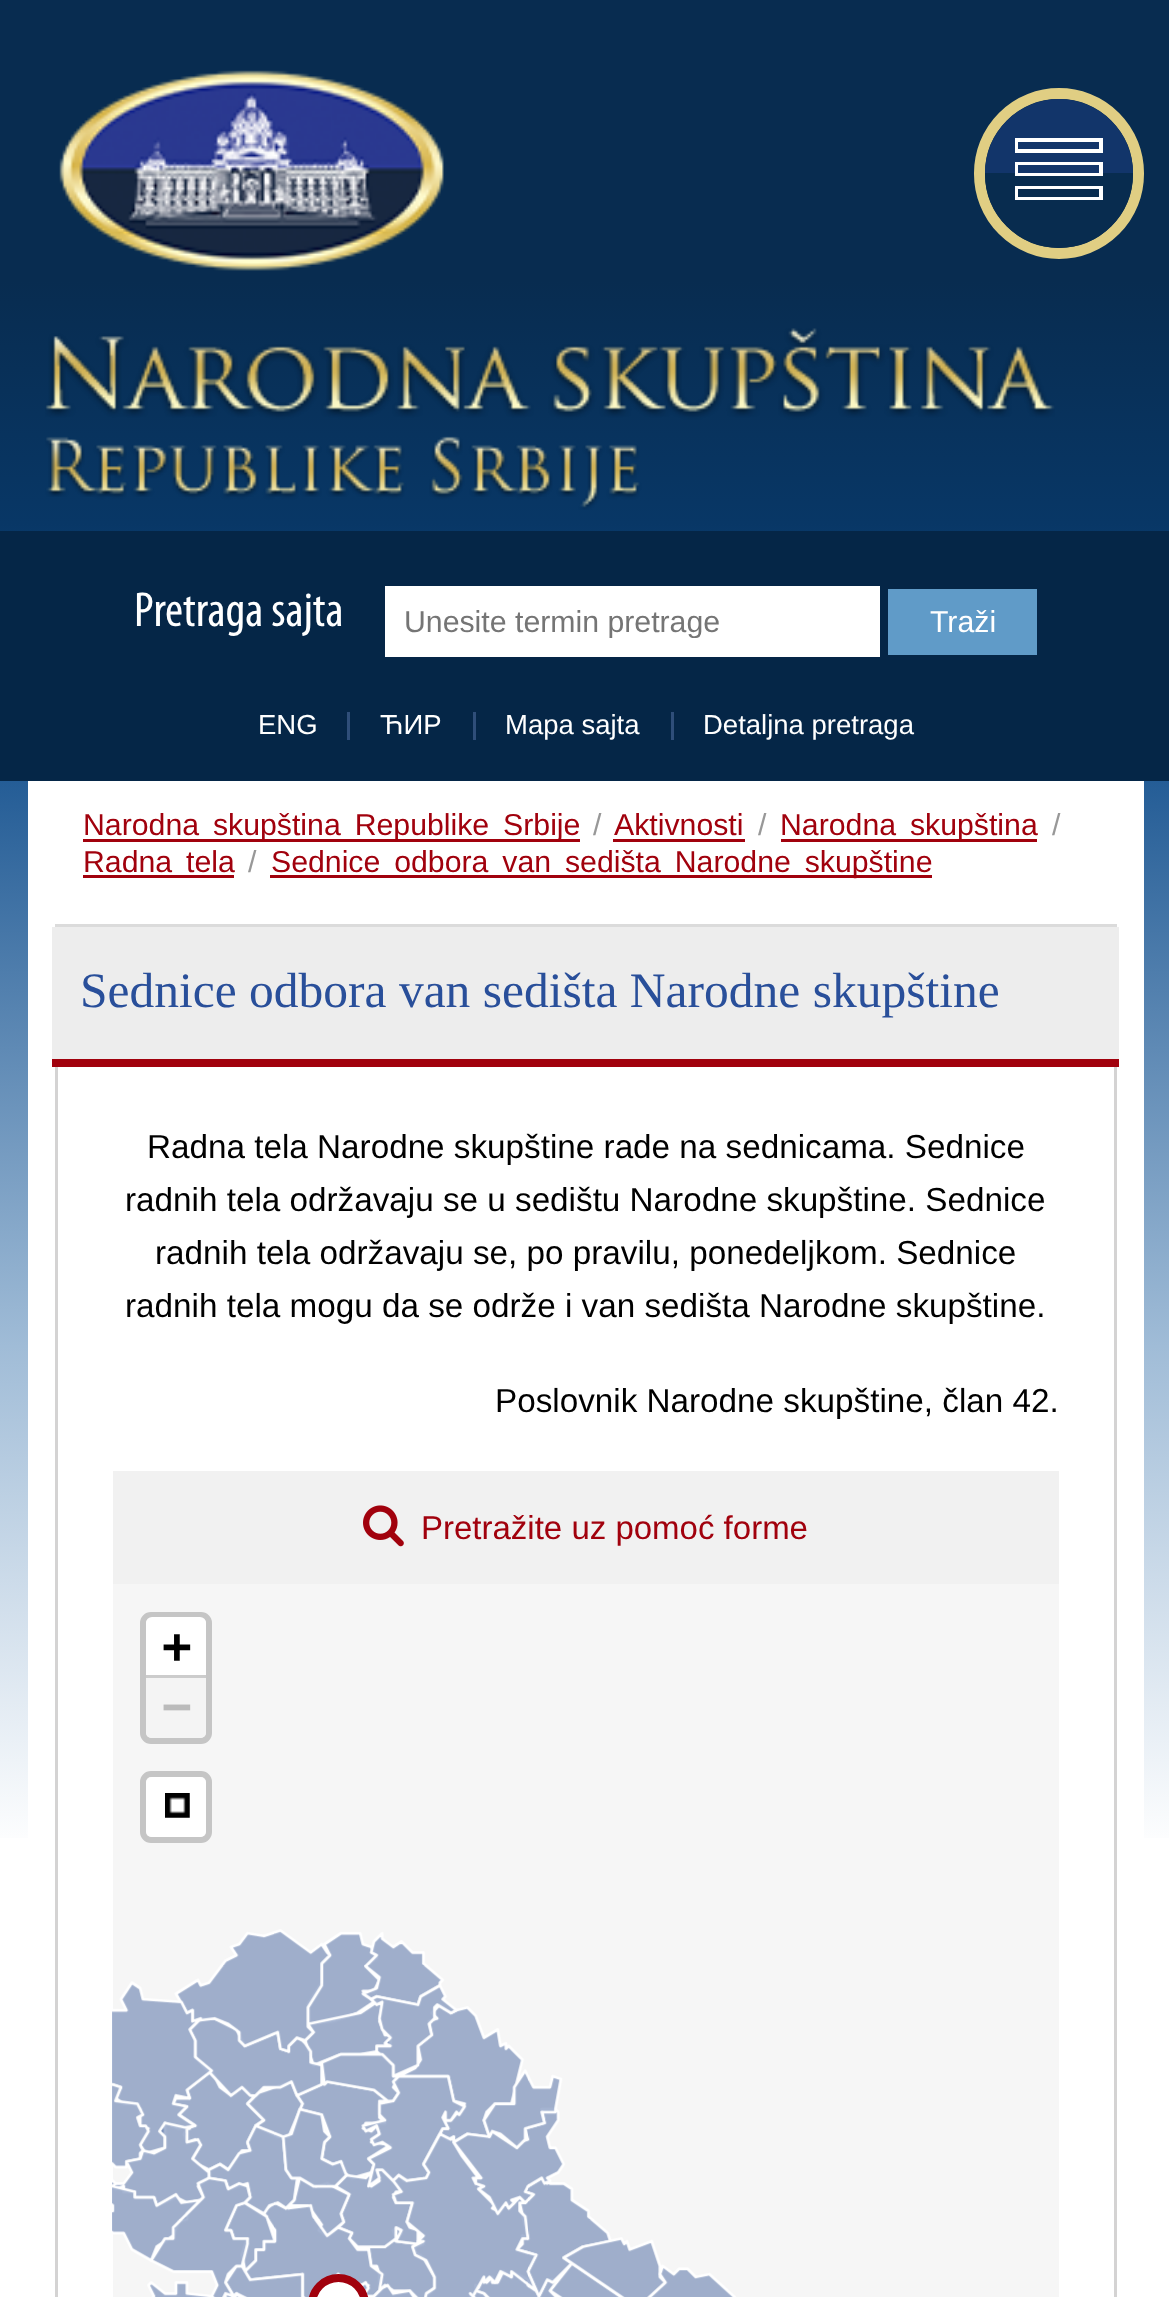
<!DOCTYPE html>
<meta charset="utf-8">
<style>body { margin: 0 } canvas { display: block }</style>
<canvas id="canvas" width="1169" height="2297"></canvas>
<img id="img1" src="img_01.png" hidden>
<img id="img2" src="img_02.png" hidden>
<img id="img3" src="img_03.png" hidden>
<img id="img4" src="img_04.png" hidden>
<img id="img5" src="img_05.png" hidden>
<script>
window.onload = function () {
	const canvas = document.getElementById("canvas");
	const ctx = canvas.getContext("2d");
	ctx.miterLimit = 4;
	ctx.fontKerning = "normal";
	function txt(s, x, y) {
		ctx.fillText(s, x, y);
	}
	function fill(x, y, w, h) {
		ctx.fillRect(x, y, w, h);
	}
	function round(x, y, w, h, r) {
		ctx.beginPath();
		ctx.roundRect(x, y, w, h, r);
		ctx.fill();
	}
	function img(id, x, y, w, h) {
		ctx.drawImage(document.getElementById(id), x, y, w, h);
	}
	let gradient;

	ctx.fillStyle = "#FFFFFF";
	fill(0, 0, 1169, 2297);
	gradient = ctx.createLinearGradient(586, 0, 586, 1870);
	gradient.addColorStop(0.15, "#082C50");
	gradient.addColorStop(0.28, "#083766");
	gradient.addColorStop(0.38, "#15518E");
	gradient.addColorStop(0.72, "#A0BCD7");
	gradient.addColorStop(0.99, "#FFFFFF");
	ctx.fillStyle = gradient;
	fill(0, 0, 1169, 1838);
	img("img1", 59, 70, 385, 201);
	img("img2", 45, 328, 1010, 182);
	ctx.beginPath();
	ctx.roundRect(979.5, 93.5, 159, 160, 79.5);
	ctx.strokeStyle = "#E0CE83";
	ctx.lineWidth = 11;
	ctx.stroke();
	ctx.fillStyle = "#12356A";
	ctx.beginPath();
	ctx.roundRect(985, 99, 148, 74, [74, 74, 0, 0]);
	ctx.fill();
	ctx.fillStyle = "#082C4F";
	ctx.beginPath();
	ctx.roundRect(985, 173, 148, 75, [0, 0, 74, 74]);
	ctx.fill();
	ctx.fillStyle = "#FFFFFF";
	ctx.beginPath();
	ctx.moveTo(1015, 138);
	ctx.lineTo(1015, 153);
	ctx.lineTo(1103, 153);
	ctx.lineTo(1103, 138);
	ctx.closePath();
	ctx.moveTo(1099, 149);
	ctx.lineTo(1018, 149);
	ctx.lineTo(1018, 142);
	ctx.lineTo(1099, 142);
	ctx.closePath();
	ctx.moveTo(1015, 176);
	ctx.lineTo(1103, 176);
	ctx.lineTo(1103, 162);
	ctx.lineTo(1015, 162);
	ctx.closePath();
	ctx.moveTo(1018, 165);
	ctx.lineTo(1099, 165);
	ctx.lineTo(1099, 173);
	ctx.lineTo(1018, 173);
	ctx.closePath();
	ctx.moveTo(1015, 200);
	ctx.lineTo(1103, 200);
	ctx.lineTo(1103, 186);
	ctx.lineTo(1015, 186);
	ctx.closePath();
	ctx.moveTo(1018, 189);
	ctx.lineTo(1099, 189);
	ctx.lineTo(1099, 197);
	ctx.lineTo(1018, 197);
	ctx.closePath();
	ctx.fill();
	ctx.fillStyle = "#052647";
	fill(0, 531, 1169, 250);
	ctx.fillStyle = "#FFFFFF";
	fill(385, 586, 495, 71);
	ctx.fillStyle = "#609BC8";
	fill(888, 589, 149, 66);
	ctx.fillStyle = "#2F4E79";
	fill(347, 712, 3, 28);
	fill(473, 712, 3, 28);
	fill(671, 712, 3, 28);
	ctx.fillStyle = "#FFFFFF";
	fill(28, 781, 1116, 1057);
	ctx.fillStyle = "#DBDBDB";
	fill(55, 924, 1062, 3);
	ctx.fillStyle = "#A1010D";
	fill(83, 839, 497, 3);
	fill(613, 839, 132, 3);
	fill(781, 839, 256, 3);
	fill(83, 875, 151, 3);
	fill(270, 875, 662, 3);
	ctx.fillStyle = "#EDEDED";
	fill(52, 927, 1067, 132);
	ctx.fillStyle = "#A1010D";
	fill(52, 1059, 1067, 8);
	ctx.fillStyle = "#D4D3D3";
	fill(1114, 1067, 3, 1230);
	fill(55, 1067, 3, 1230);
	ctx.fillStyle = "#F6F6F6";
	fill(113, 1584, 946, 713);
	ctx.fillStyle = "#F1F1F1";
	fill(113, 1471, 946, 113);
	img("img3", 363, 1505, 41, 42);
	ctx.beginPath();
	ctx.roundRect(143, 1615, 66, 126, 8);
	ctx.strokeStyle = "#C5C5C5";
	ctx.lineWidth = 6;
	ctx.stroke();
	ctx.fillStyle = "#FFFFFF";
	ctx.beginPath();
	ctx.roundRect(146, 1617, 60, 61, [6, 6, 0, 0]);
	ctx.fill();
	ctx.fillStyle = "#CCCCCC";
	fill(146, 1675, 60, 3);
	ctx.fillStyle = "#F4F4F4";
	ctx.beginPath();
	ctx.roundRect(146, 1678, 60, 60, [0, 0, 6, 6]);
	ctx.fill();
	ctx.beginPath();
	ctx.roundRect(143, 1774, 66, 66, 8);
	ctx.stroke();
	ctx.fillStyle = "#FFFFFF";
	round(146, 1777, 60, 60, 6);
	img("img4", 165, 1793, 25, 25);
	img("img5", 112, 1929, 624, 368);
	ctx.beginPath();
	ctx.arc(338.5, 2304.5, 26.5, 0, Math.PI * 2);
	ctx.fill();
	ctx.strokeStyle = "#A1010D";
	ctx.lineWidth = 8;
	ctx.stroke();
	ctx.font = "49.5px Myriad";
	txt("Pretraga sajta", 134, 626);
	ctx.save();
	ctx.beginPath();
	ctx.rect(404, 605, 457, 33);
	ctx.clip();
	ctx.font = "30.25px Liberation Sans";
	ctx.fillStyle = "#757575";
	txt("Unesite termin pretrage", 404, 632);
	ctx.restore();
	ctx.font = "30.25px Liberation Sans";
	txt("Traži", 930, 632);
	ctx.font = "27.5px Liberation Sans";
	txt("ENG", 258, 734);
	txt("ЋИР", 380, 734);
	txt("Mapa sajta", 505, 734);
	txt("Detaljna pretraga", 703, 734);
	ctx.wordSpacing = "5.5px";
	ctx.font = "30.25px Liberation Sans";
	ctx.fillStyle = "#A1010D";
	txt("Narodna skupština Republike Srbije", 83, 835);
	ctx.wordSpacing = "0px";
	ctx.fillStyle = "#989898";
	txt("/", 593, 835);
	ctx.fillStyle = "#A1010D";
	txt("Aktivnosti", 614, 835);
	ctx.fillStyle = "#989898";
	txt("/", 758, 835);
	ctx.wordSpacing = "5.5px";
	ctx.fillStyle = "#A1010D";
	txt("Narodna skupština", 780, 835);
	ctx.wordSpacing = "0px";
	ctx.fillStyle = "#989898";
	txt("/", 1052, 835);
	ctx.wordSpacing = "5.5px";
	ctx.fillStyle = "#A1010D";
	txt("Radna tela", 83, 872);
	ctx.wordSpacing = "0px";
	ctx.fillStyle = "#989898";
	txt("/", 248, 872);
	ctx.wordSpacing = "5.5px";
	ctx.fillStyle = "#A1010D";
	txt("Sednice odbora van sedišta Narodne skupštine", 271, 872);
	ctx.wordSpacing = "0px";
	ctx.font = "49.5px Liberation Serif";
	ctx.fillStyle = "#294F9A";
	txt("Sednice odbora van sedišta Narodne skupštine", 80, 1007);
	ctx.font = "33.25px Liberation Sans";
	ctx.fillStyle = "#000000";
	txt("Radna tela Narodne skupštine rade na sednicama. Sednice", 147, 1158);
	txt("radnih tela održavaju se u sedištu Narodne skupštine. Sednice", 125, 1211);
	txt("radnih tela održavaju se, po pravilu, ponedeljkom. Sednice", 155, 1264);
	txt("radnih tela mogu da se održe i van sedišta Narodne skupštine.", 125, 1317);
	txt("Poslovnik Narodne skupštine, član 42.", 495, 1412);
	ctx.font = "33px Liberation Sans";
	ctx.fillStyle = "#A1010D";
	txt("Pretražite uz pomoć forme", 421, 1539);
	ctx.font = "bold 49.5px DejaVu Sans Mono";
	ctx.fillStyle = "#000000";
	txt("+", 162, 1663);
	ctx.fillStyle = "#BBBBBB";
	txt("−", 162, 1723);
};
</script>
